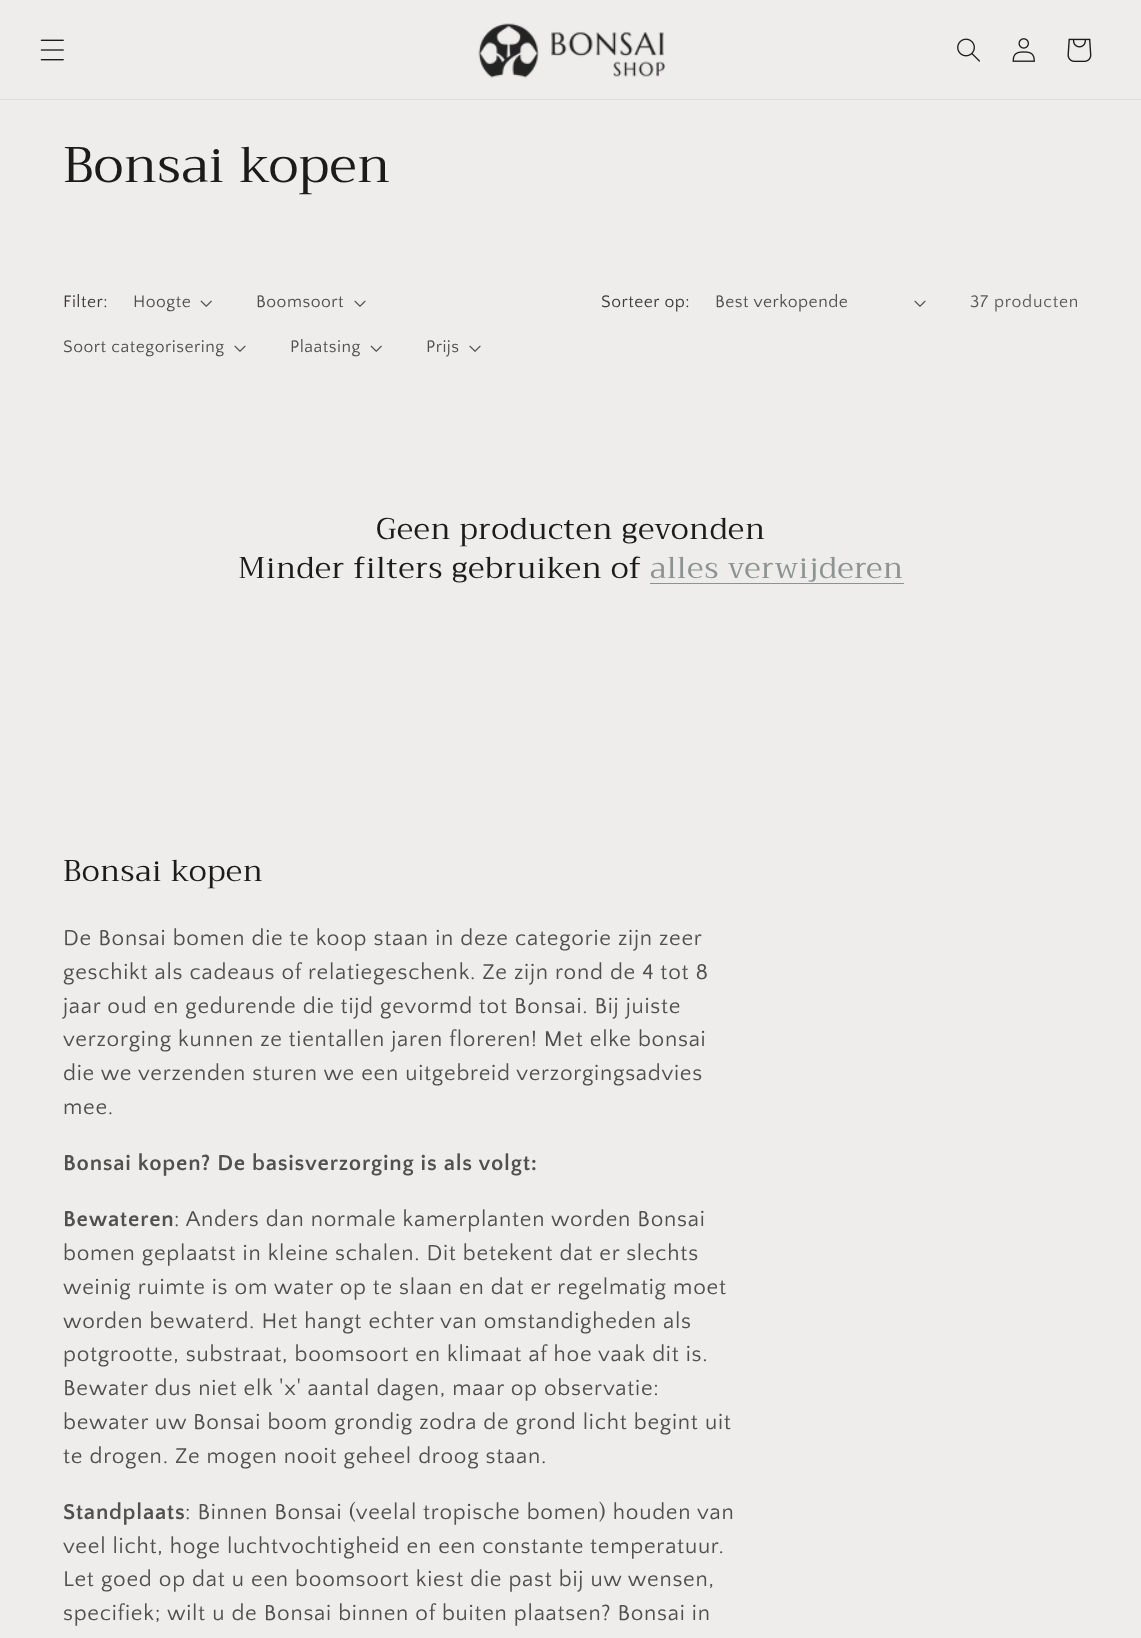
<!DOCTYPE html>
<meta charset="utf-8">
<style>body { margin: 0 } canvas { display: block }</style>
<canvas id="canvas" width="1141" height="1638"></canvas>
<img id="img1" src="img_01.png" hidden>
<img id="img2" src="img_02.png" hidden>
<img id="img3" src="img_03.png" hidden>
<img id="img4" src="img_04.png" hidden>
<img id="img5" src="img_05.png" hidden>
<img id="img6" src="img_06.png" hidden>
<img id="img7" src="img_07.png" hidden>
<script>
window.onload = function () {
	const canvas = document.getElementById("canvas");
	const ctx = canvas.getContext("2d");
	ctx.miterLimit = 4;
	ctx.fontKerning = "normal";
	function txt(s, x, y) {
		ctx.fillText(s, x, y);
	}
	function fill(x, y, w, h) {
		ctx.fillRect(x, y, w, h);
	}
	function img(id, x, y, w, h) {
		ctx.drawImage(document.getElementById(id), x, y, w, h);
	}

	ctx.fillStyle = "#EFECEC";
	fill(0, 0, 1141, 1638);
	ctx.fillStyle = "#DEDBDB";
	fill(0, 99, 1141, 1);
	img("img1", 40, 39, 24, 22);
	img("img2", 478, 23, 187, 55);
	img("img3", 957, 38, 23, 24);
	img("img4", 1012, 38, 23, 24);
	img("img5", 1067, 38, 25, 24);
	img("img6", 200, 300, 12, 7);
	img("img7", 354, 300, 12, 7);
	img("img7", 234, 345, 12, 7);
	img("img6", 370, 345, 12, 7);
	img("img7", 469, 345, 12, 7);
	img("img7", 914, 300, 12, 7);
	ctx.fillStyle = "#8C9392";
	fill(650, 583, 254, 1);
	ctx.letterSpacing = "0.75px";
	ctx.font = "50px Trirong";
	ctx.fillStyle = "#1C1A1A";
	txt("Bonsai kopen", 63, 182);
	ctx.letterSpacing = "0.5px";
	ctx.font = "17.5px Quattrocento Sans";
	ctx.fillStyle = "#3C3A3A";
	txt("Filter:", 63, 307);
	ctx.fillStyle = "#514F4F";
	txt("Hoogte", 133, 307);
	txt("Boomsoort", 256, 307);
	txt("Soort categorisering", 63, 352);
	txt("Plaatsing", 290, 352);
	txt("Prijs", 426, 352);
	ctx.fillStyle = "#3C3A3A";
	txt("Sorteer op:", 601, 307);
	ctx.fillStyle = "#514F4F";
	txt("Best verkopende", 715, 307);
	ctx.letterSpacing = "0.75px";
	ctx.fillStyle = "#5B5959";
	txt("37 producten", 970, 307);
	ctx.font = "30px Trirong";
	ctx.fillStyle = "#1C1A1A";
	txt("Geen producten gevonden", 376, 539);
	txt("Minder filters gebruiken of", 238, 578);
	ctx.fillStyle = "#8C9392";
	txt("alles verwijderen", 650, 578);
	ctx.fillStyle = "#1C1A1A";
	txt("Bonsai kopen", 63, 881);
	ctx.font = "22.5px Quattrocento Sans";
	ctx.fillStyle = "#514F4F";
	txt("De Bonsai bomen die te koop staan in deze categorie zijn zeer", 63, 945);
	txt("geschikt als cadeaus of relatiegeschenk. Ze zijn rond de 4 tot 8", 63, 979);
	txt("jaar oud en gedurende die tijd gevormd tot Bonsai. Bij juiste", 63, 1013);
	txt("verzorging kunnen ze tientallen jaren floreren! Met elke bonsai", 63, 1046);
	txt("die we verzenden sturen we een uitgebreid verzorgingsadvies", 63, 1080);
	txt("mee.", 63, 1114);
	ctx.font = "bold 22.5px Quattrocento Sans";
	txt("Bonsai kopen? De basisverzorging is als volgt:", 63, 1170);
	txt("Bewateren", 63, 1226);
	ctx.font = "22.5px Quattrocento Sans";
	txt(": Anders dan normale kamerplanten worden Bonsai", 174, 1226);
	txt("bomen geplaatst in kleine schalen. Dit betekent dat er slechts", 63, 1260);
	txt("weinig ruimte is om water op te slaan en dat er regelmatig moet", 63, 1294);
	txt("worden bewaterd. Het hangt echter van omstandigheden als", 63, 1328);
	txt("potgrootte, substraat, boomsoort en klimaat af hoe vaak dit is.", 63, 1361);
	txt("Bewater dus niet elk 'x' aantal dagen, maar op observatie:", 63, 1395);
	txt("bewater uw Bonsai boom grondig zodra de grond licht begint uit", 63, 1429);
	txt("te drogen. Ze mogen nooit geheel droog staan.", 63, 1463);
	ctx.font = "bold 22.5px Quattrocento Sans";
	txt("Standplaats", 63, 1519);
	ctx.font = "22.5px Quattrocento Sans";
	txt(": Binnen Bonsai (veelal tropische bomen) houden van", 185, 1519);
	txt("veel licht, hoge luchtvochtigheid en een constante temperatuur.", 63, 1553);
	txt("Let goed op dat u een boomsoort kiest die past bij uw wensen,", 63, 1586);
	txt("specifiek; wilt u de Bonsai binnen of buiten plaatsen? Bonsai in", 63, 1620);
};
</script>
